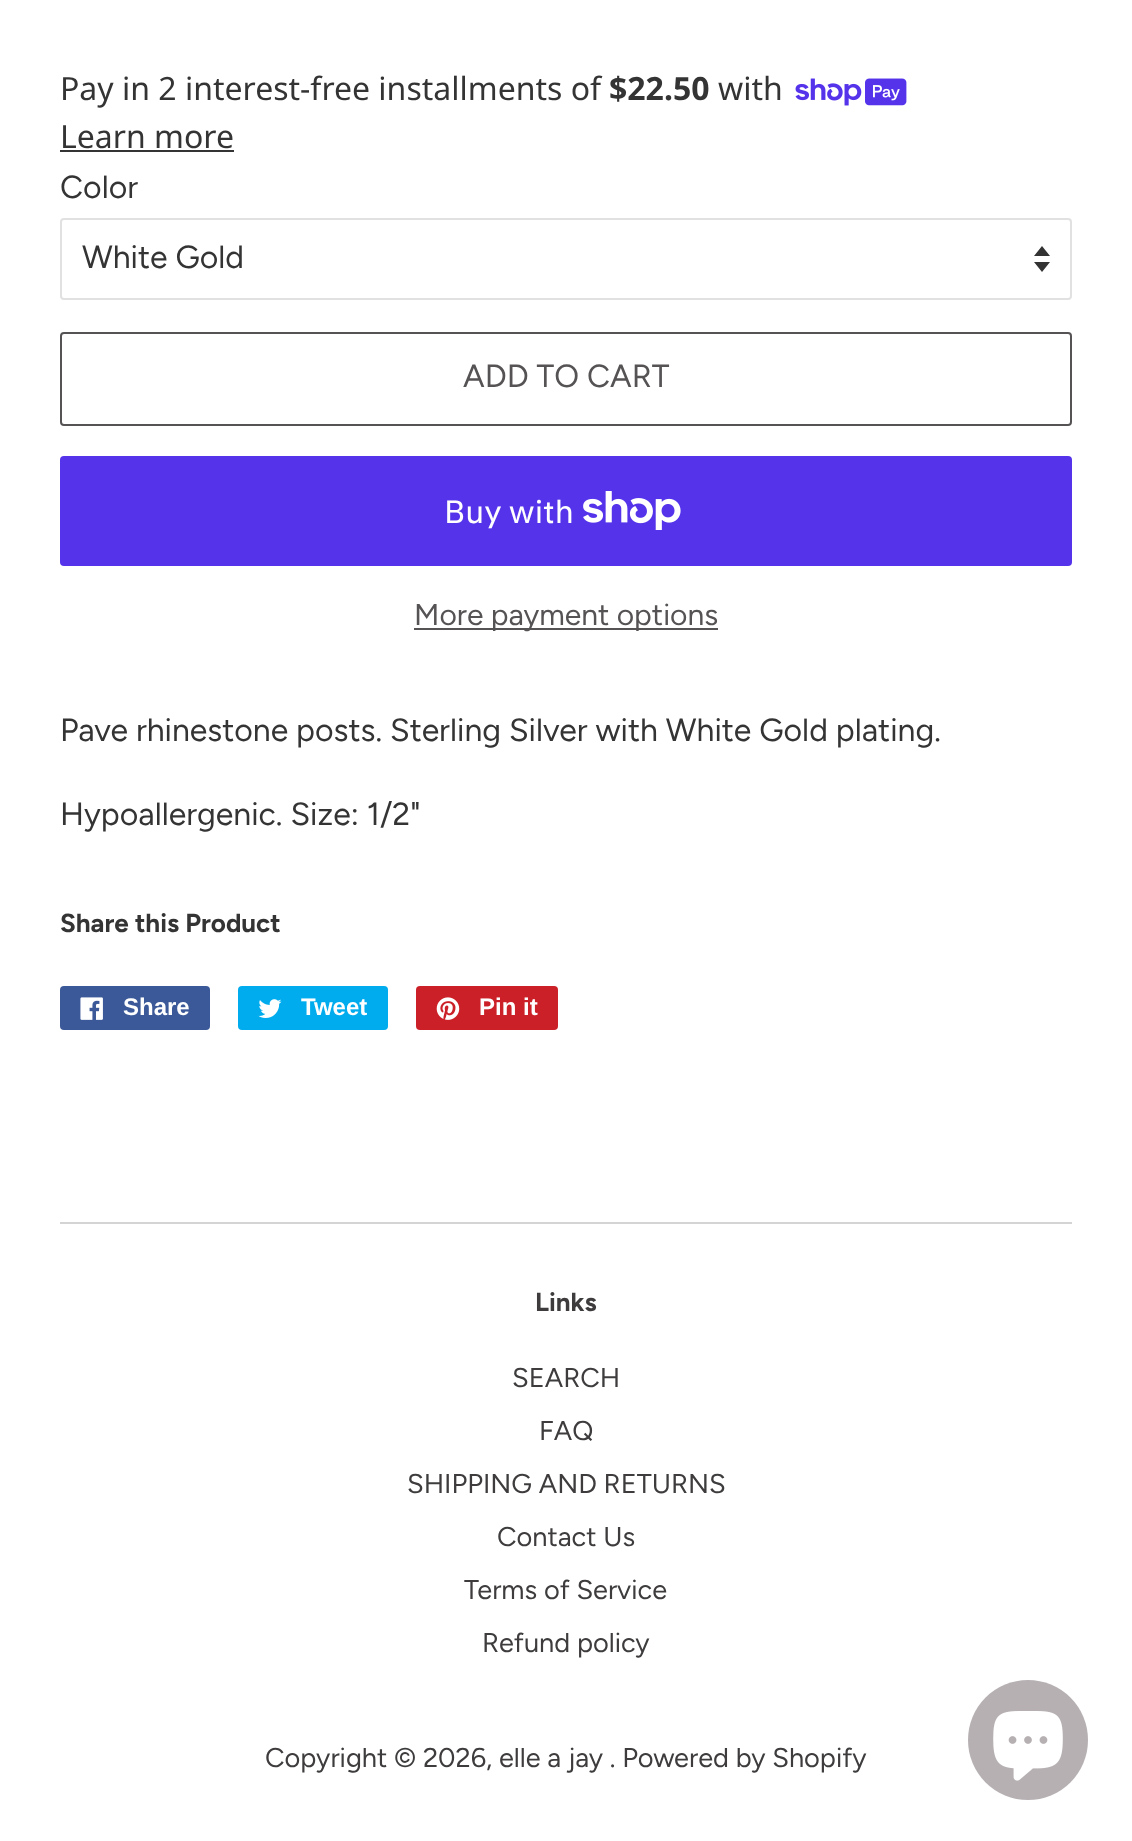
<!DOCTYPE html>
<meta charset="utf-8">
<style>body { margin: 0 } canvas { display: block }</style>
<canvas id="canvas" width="1132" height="1841"></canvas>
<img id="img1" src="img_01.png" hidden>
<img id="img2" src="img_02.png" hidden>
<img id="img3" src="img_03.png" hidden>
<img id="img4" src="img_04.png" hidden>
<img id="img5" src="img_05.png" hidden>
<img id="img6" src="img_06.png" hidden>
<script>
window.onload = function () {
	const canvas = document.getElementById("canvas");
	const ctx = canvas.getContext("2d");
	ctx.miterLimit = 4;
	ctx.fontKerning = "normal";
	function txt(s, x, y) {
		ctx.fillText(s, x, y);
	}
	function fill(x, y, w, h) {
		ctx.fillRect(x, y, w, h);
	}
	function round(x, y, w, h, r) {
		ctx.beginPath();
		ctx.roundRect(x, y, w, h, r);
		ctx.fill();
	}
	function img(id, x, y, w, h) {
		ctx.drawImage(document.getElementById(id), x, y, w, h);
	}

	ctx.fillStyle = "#FFFFFF";
	fill(0, 0, 1132, 1841);
	img("img1", 795, 78, 112, 28);
	ctx.fillStyle = "#353434";
	fill(60, 150, 174, 2);
	ctx.fillStyle = "#333333";
	ctx.beginPath();
	ctx.moveTo(1034, 262);
	ctx.lineTo(1042, 272);
	ctx.lineTo(1050, 262);
	ctx.closePath();
	ctx.moveTo(1042, 246);
	ctx.lineTo(1034, 256);
	ctx.lineTo(1050, 256);
	ctx.closePath();
	ctx.fill();
	ctx.beginPath();
	ctx.roundRect(61, 219, 1010, 80, 3);
	ctx.strokeStyle = "#E1E1E1";
	ctx.lineWidth = 2;
	ctx.stroke();
	ctx.beginPath();
	ctx.roundRect(61, 333, 1010, 92, 3);
	ctx.strokeStyle = "#565355";
	ctx.stroke();
	ctx.fillStyle = "#5433EB";
	round(60, 456, 1012, 110, 4);
	img("img2", 583, 491, 98, 39);
	ctx.fillStyle = "#565355";
	fill(414, 628, 304, 2);
	ctx.fillStyle = "#3B5998";
	round(60, 986, 150, 44, 4);
	img("img3", 80, 997, 23, 23);
	ctx.fillStyle = "#00ACED";
	round(238, 986, 150, 44, 4);
	img("img4", 258, 999, 24, 19);
	ctx.fillStyle = "#CB2027";
	round(416, 986, 142, 44, 4);
	img("img5", 436, 997, 24, 23);
	ctx.fillStyle = "#D3D4D3";
	fill(60, 1222, 1012, 2);
	ctx.fillStyle = "#B6B0B3";
	ctx.beginPath();
	ctx.arc(1028, 1740, 60, 0, Math.PI * 2);
	ctx.fill();
	img("img6", 993, 1711, 70, 70);
	ctx.font = "32px Noto Sans";
	ctx.fillStyle = "#353434";
	txt("Pay in 2 interest-free installments of", 60, 100);
	ctx.font = "bold 32px Noto Sans";
	txt("$22.50", 609, 100);
	ctx.font = "32px Noto Sans";
	txt("with", 718, 100);
	txt("Learn more", 60, 148);
	ctx.font = "32px Figtree";
	txt("Color", 60, 198);
	txt("White Gold", 82, 268);
	ctx.fillStyle = "#565355";
	txt("ADD TO CART", 463, 387);
	ctx.font = "32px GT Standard";
	ctx.fillStyle = "#FFFFFF";
	txt("Buy with", 444, 523);
	ctx.font = "30px Figtree";
	ctx.fillStyle = "#565355";
	txt("More payment options", 414, 625);
	ctx.font = "32px Figtree";
	ctx.fillStyle = "#353434";
	txt("Pave rhinestone posts. Sterling Silver with White Gold plating.", 60, 741);
	txt("Hypoallergenic. Size: 1/2\"", 60, 825);
	ctx.font = "bold 26px Figtree";
	txt("Share this Product", 60, 932);
	ctx.font = "bold 24px Liberation Sans";
	ctx.fillStyle = "#FFFFFF";
	txt("Share", 123, 1015);
	txt("Tweet", 301, 1015);
	txt("Pin it", 479, 1015);
	ctx.font = "bold 26px Figtree";
	ctx.fillStyle = "#3E3C3C";
	txt("Links", 535, 1311);
	ctx.font = "27.2px Figtree";
	txt("SEARCH", 512, 1387);
	txt("FAQ", 539, 1440);
	txt("SHIPPING AND RETURNS", 407, 1493);
	txt("Contact Us", 497, 1546);
	txt("Terms of Service", 464, 1599);
	txt("Refund policy", 482, 1652);
	txt("Copyright © 2026, elle a jay . Powered by Shopify", 265, 1767);
};
</script>
